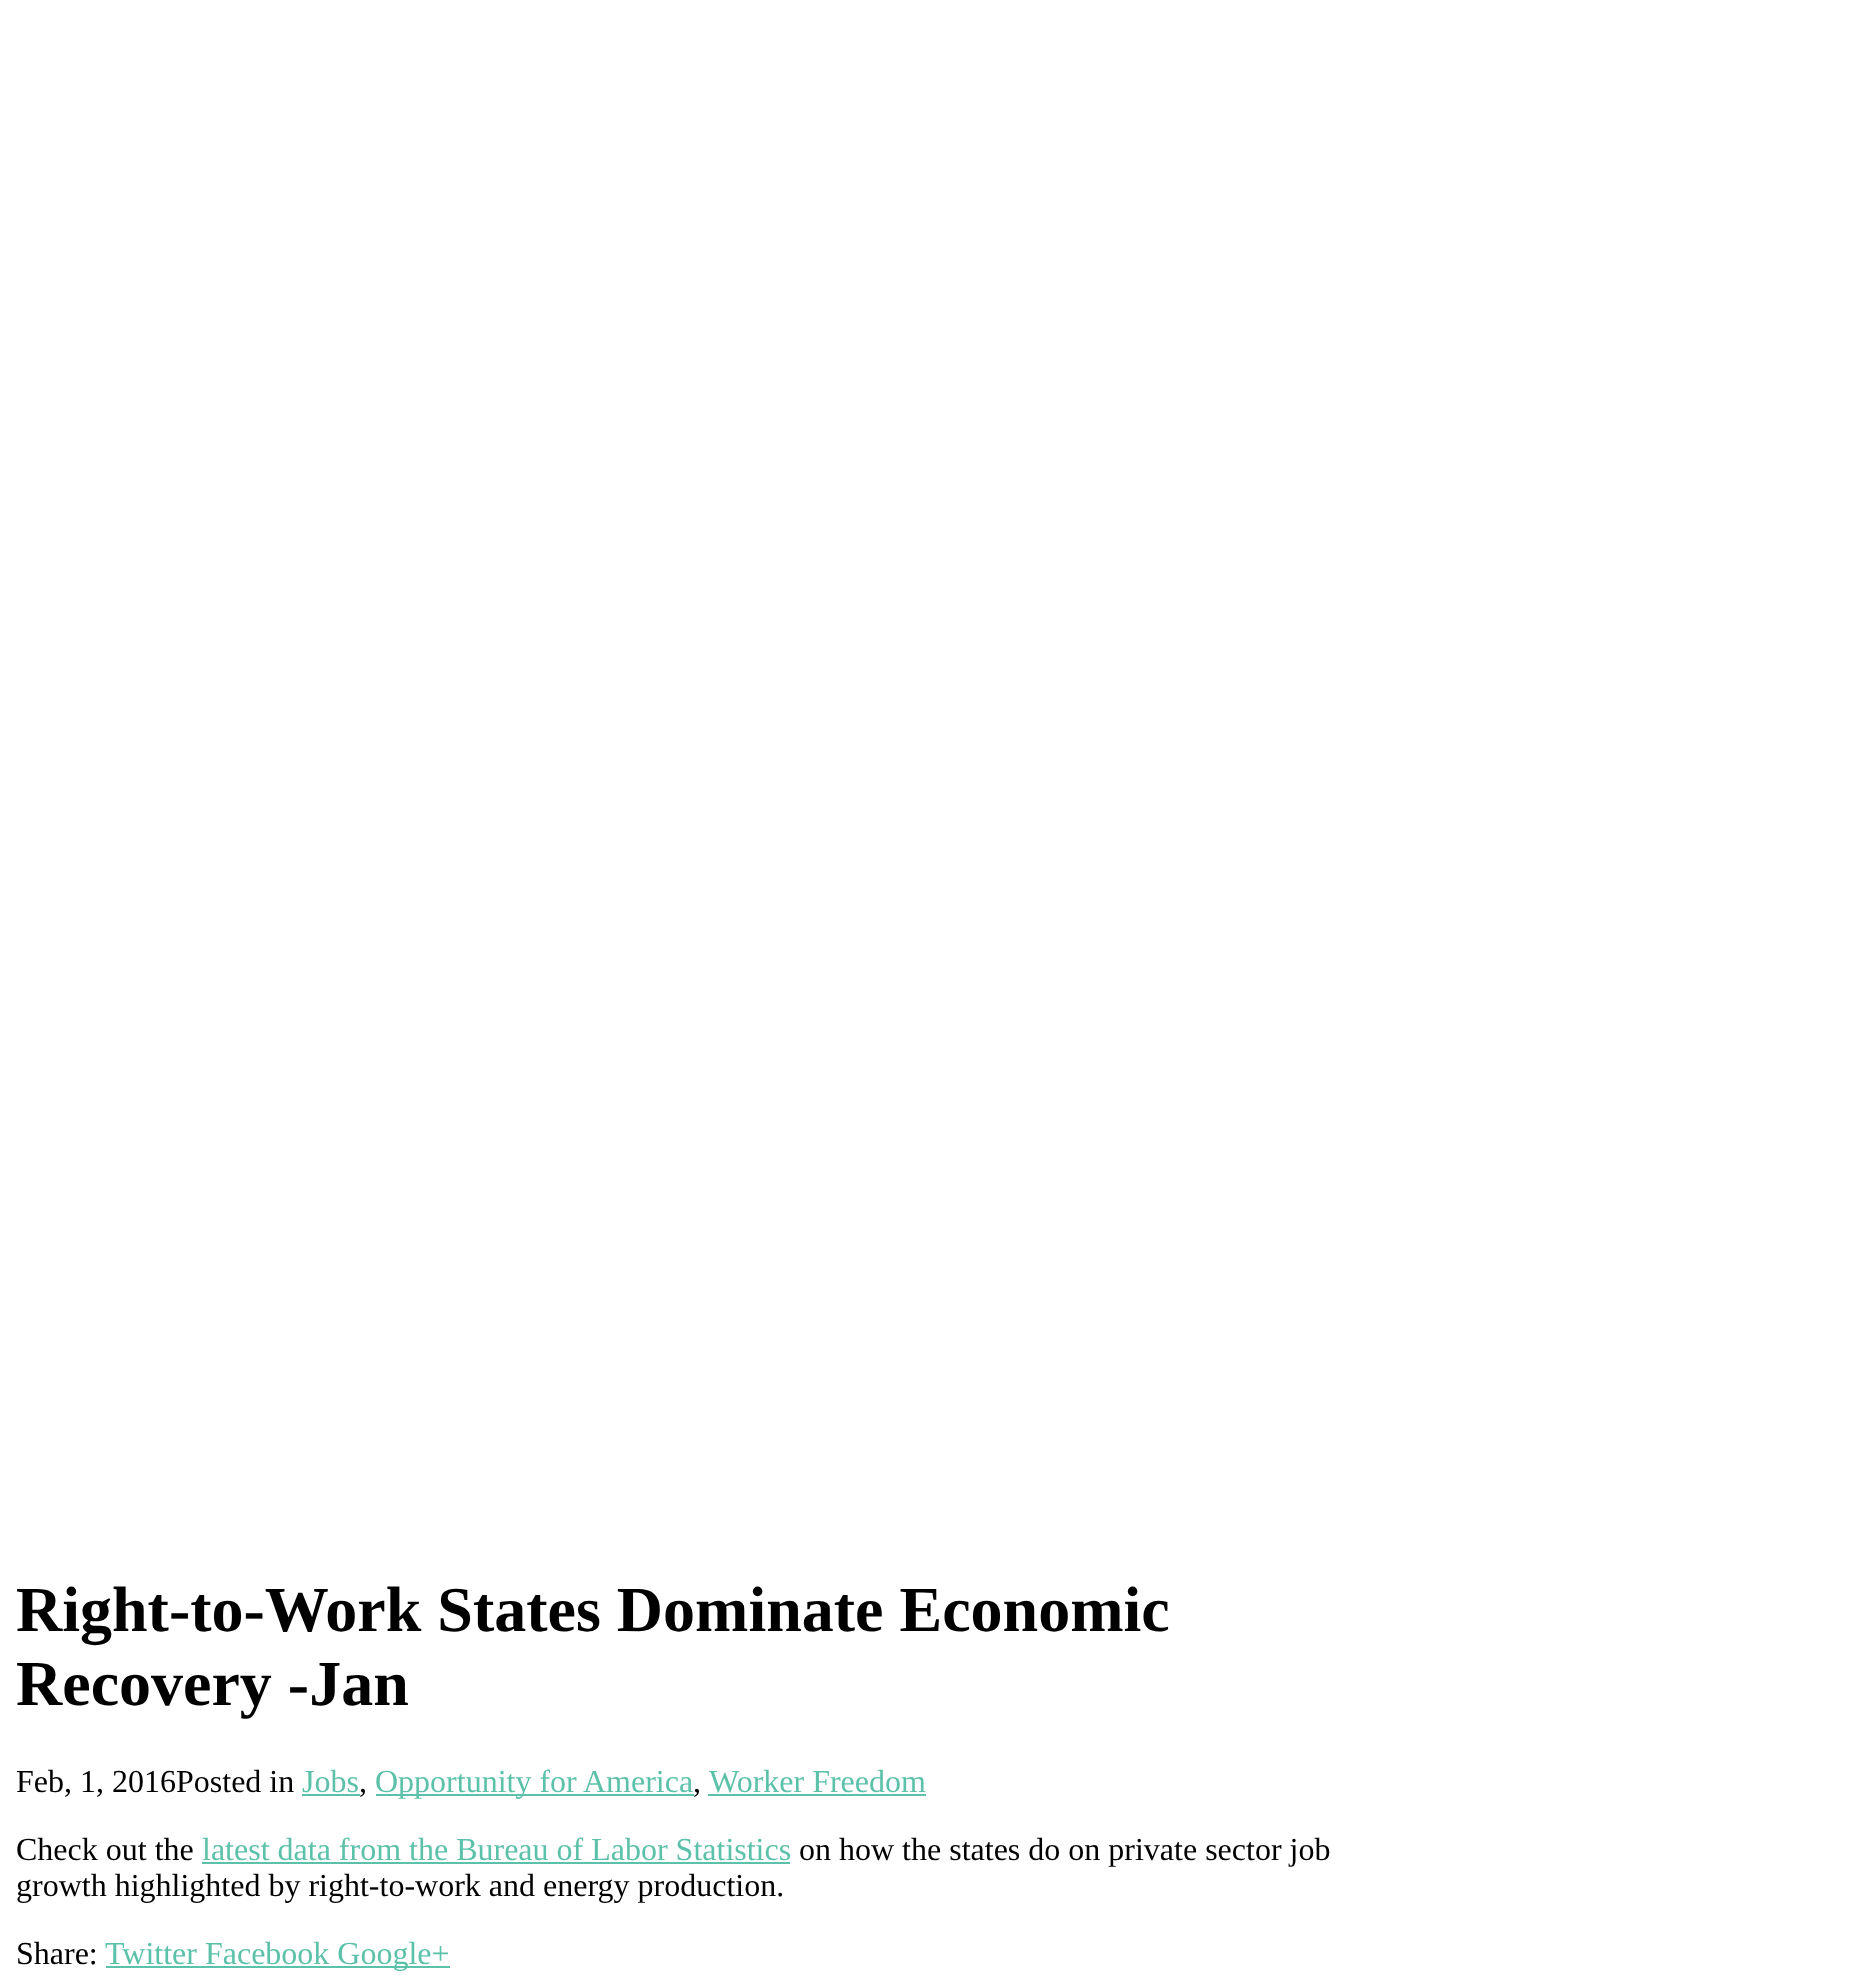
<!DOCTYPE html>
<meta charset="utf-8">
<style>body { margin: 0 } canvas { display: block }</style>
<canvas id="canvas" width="1866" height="1986"></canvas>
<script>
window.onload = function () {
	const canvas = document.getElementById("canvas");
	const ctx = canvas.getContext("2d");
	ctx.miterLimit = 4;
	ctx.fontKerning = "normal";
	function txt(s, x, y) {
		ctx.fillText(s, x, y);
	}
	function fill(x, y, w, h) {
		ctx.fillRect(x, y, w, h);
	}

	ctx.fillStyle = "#FFFFFF";
	fill(0, 0, 1866, 1986);
	ctx.fillStyle = "#5CC1A9";
	fill(302, 1794, 58, 2);
	fill(376, 1794, 318, 2);
	fill(708, 1794, 218, 2);
	fill(202, 1862, 588, 2);
	fill(106, 1966, 344, 2);
	ctx.font = "bold 64px Liberation Serif";
	ctx.fillStyle = "#000000";
	txt("Right-to-Work States Dominate Economic", 16, 1631);
	txt("Recovery -Jan", 16, 1705);
	ctx.font = "32px Liberation Serif";
	txt("Feb, 1, 2016Posted in", 16, 1792);
	ctx.fillStyle = "#5CC1A9";
	txt("Jobs", 302, 1792);
	ctx.fillStyle = "#000000";
	txt(",", 359, 1792);
	ctx.fillStyle = "#5CC1A9";
	txt("Opportunity for America", 375, 1792);
	ctx.fillStyle = "#000000";
	txt(",", 693, 1792);
	ctx.fillStyle = "#5CC1A9";
	txt("Worker Freedom", 709, 1792);
	ctx.fillStyle = "#000000";
	txt("Check out the", 16, 1860);
	ctx.fillStyle = "#5CC1A9";
	txt("latest data from the Bureau of Labor Statistics", 202, 1860);
	ctx.fillStyle = "#000000";
	txt("on how the states do on private sector job", 799, 1860);
	txt("growth highlighted by right-to-work and energy production.", 16, 1896);
	txt("Share:", 16, 1964);
	ctx.fillStyle = "#5CC1A9";
	txt("Twitter Facebook Google+", 105, 1964);
};
</script>
